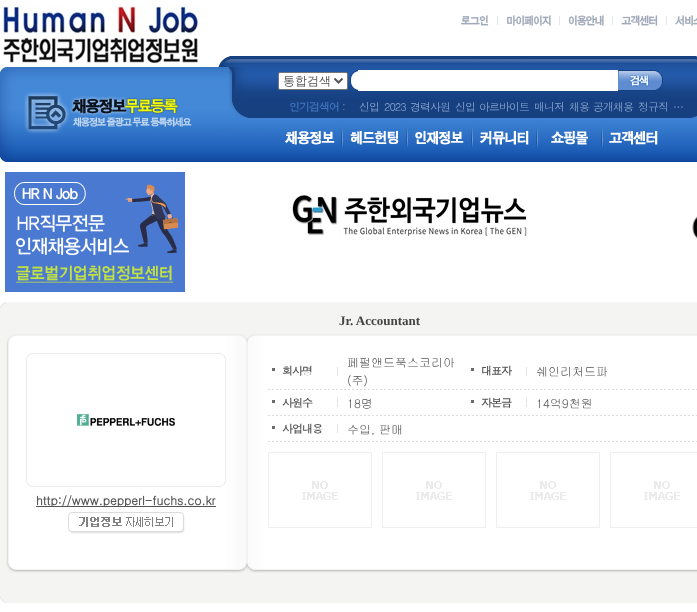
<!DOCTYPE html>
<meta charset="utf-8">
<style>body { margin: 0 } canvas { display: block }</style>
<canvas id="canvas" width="697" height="612"></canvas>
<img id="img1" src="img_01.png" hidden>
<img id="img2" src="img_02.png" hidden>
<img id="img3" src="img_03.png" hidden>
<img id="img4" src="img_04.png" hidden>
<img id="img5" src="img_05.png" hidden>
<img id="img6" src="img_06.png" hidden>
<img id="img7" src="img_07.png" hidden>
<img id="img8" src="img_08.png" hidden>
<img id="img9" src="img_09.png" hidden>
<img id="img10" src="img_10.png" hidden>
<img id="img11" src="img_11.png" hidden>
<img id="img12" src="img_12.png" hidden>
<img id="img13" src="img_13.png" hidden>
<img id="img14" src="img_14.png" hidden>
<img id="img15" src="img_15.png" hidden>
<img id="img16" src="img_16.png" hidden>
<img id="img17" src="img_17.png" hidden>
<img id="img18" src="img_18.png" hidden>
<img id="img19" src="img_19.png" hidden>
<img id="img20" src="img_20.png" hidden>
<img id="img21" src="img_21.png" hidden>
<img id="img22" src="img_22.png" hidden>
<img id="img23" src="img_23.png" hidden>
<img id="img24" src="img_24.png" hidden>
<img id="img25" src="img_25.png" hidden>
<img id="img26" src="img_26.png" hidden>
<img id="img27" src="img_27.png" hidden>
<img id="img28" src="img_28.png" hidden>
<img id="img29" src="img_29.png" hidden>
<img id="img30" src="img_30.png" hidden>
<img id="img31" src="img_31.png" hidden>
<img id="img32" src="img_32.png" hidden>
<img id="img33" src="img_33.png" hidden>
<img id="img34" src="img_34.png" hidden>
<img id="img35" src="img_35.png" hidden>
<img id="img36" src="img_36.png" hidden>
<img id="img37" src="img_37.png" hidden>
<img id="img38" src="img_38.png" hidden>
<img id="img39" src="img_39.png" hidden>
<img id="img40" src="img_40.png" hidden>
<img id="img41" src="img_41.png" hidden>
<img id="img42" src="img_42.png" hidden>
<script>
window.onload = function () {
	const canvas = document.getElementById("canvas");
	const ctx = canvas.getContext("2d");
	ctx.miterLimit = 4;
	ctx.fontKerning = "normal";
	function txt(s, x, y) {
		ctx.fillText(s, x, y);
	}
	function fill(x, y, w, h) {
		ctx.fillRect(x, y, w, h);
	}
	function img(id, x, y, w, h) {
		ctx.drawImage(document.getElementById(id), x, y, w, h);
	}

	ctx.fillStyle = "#FFFFFF";
	fill(0, 0, 697, 612);
	img("img1", 218, 56, 479, 11);
	img("img2", 0, 4, 200, 60);
	img("img3", 461, 15, 28, 11);
	ctx.fillStyle = "#E3E7EE";
	fill(497, 16, 1, 9);
	img("img4", 507, 15, 44, 11);
	fill(559, 16, 1, 9);
	img("img5", 568, 15, 36, 11);
	fill(612, 16, 1, 9);
	img("img6", 621, 15, 37, 11);
	fill(666, 16, 1, 9);
	img("img7", 675, 15, 22, 11);
	img("img8", 0, 67, 697, 95);
	img("img9", 24, 92, 168, 42);
	img("img10", 229, 67, 468, 51);
	ctx.fillStyle = "#FFFFFF";
	ctx.beginPath();
	ctx.roundRect(278.5, 72.5, 69, 17, 1.5);
	ctx.fill();
	ctx.strokeStyle = "#767676";
	ctx.stroke();
	ctx.beginPath();
	ctx.moveTo(334.5, 78.5);
	ctx.lineTo(338.5, 82.5);
	ctx.lineTo(342.5, 78.5);
	ctx.strokeStyle = "#555555";
	ctx.lineWidth = 2;
	ctx.stroke();
	img("img11", 350, 70, 8, 21);
	fill(358, 70, 260, 21);
	img("img12", 618, 70, 45, 21);
	img("img13", 285, 131, 50, 14);
	img("img14", 341, 127, 2, 21);
	img("img15", 350, 131, 49, 14);
	img("img14", 406, 127, 2, 21);
	img("img16", 415, 131, 49, 14);
	img("img14", 471, 127, 2, 21);
	img("img17", 480, 131, 49, 14);
	img("img14", 536, 127, 2, 21);
	img("img18", 551, 131, 37, 14);
	img("img14", 601, 127, 2, 21);
	img("img19", 609, 131, 49, 14);
	img("img20", 5, 172, 180, 120);
	img("img21", 292, 195, 235, 41);
	img("img22", 692, 216, 5, 23);
	img("img23", 0, 302, 6, 6);
	ctx.fillStyle = "#F4F4F3";
	fill(6, 302, 691, 6);
	fill(0, 308, 697, 289);
	img("img24", 6, 334, 10, 9);
	img("img25", 16, 334, 210, 9);
	img("img26", 226, 334, 42, 9);
	img("img27", 268, 334, 429, 9);
	img("img28", 6, 343, 10, 220);
	img("img29", 226, 343, 42, 220);
	ctx.fillStyle = "#FFFFFF";
	fill(268, 343, 429, 220);
	ctx.fillStyle = "#6B6B6B";
	fill(272, 368, 3, 3);
	ctx.fillStyle = "#E4E4E4";
	fill(337, 367, 1, 9);
	ctx.fillStyle = "#6B6B6B";
	fill(471, 368, 3, 3);
	ctx.fillStyle = "#E4E4E4";
	fill(526, 367, 1, 9);
	img("img30", 268, 389, 429, 1);
	ctx.fillStyle = "#6B6B6B";
	fill(272, 400, 3, 3);
	ctx.fillStyle = "#E4E4E4";
	fill(337, 398, 1, 9);
	ctx.fillStyle = "#6B6B6B";
	fill(471, 400, 3, 3);
	ctx.fillStyle = "#E4E4E4";
	fill(526, 398, 1, 9);
	img("img30", 268, 415, 429, 1);
	ctx.fillStyle = "#6B6B6B";
	fill(272, 426, 3, 3);
	ctx.fillStyle = "#E4E4E4";
	fill(337, 424, 1, 9);
	img("img30", 268, 441, 429, 1);
	ctx.strokeStyle = "#EFEFEF";
	ctx.lineWidth = 1;
	ctx.strokeRect(268.5, 452.5, 103, 75);
	img("img31", 302, 481, 36, 19);
	ctx.strokeRect(382.5, 452.5, 103, 75);
	img("img31", 416, 481, 36, 19);
	ctx.strokeRect(496.5, 452.5, 103, 75);
	img("img31", 530, 481, 36, 19);
	ctx.strokeRect(610.5, 452.5, 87, 75);
	img("img31", 644, 481, 36, 19);
	ctx.fillStyle = "#FFFFFF";
	fill(16, 343, 210, 220);
	img("img32", 26, 353, 7, 7);
	ctx.fillStyle = "#EBEBEB";
	fill(33, 353, 186, 1);
	img("img33", 219, 353, 7, 7);
	fill(26, 360, 1, 120);
	img("img34", 77, 414, 98, 12);
	fill(225, 360, 1, 120);
	img("img35", 26, 480, 7, 7);
	fill(33, 486, 186, 1);
	img("img36", 219, 480, 7, 7);
	ctx.fillStyle = "#555555";
	fill(36, 506, 180, 1);
	img("img37", 68, 512, 117, 22);
	img("img38", 6, 563, 10, 10);
	img("img39", 16, 563, 210, 10);
	img("img40", 226, 563, 42, 10);
	img("img41", 268, 563, 429, 10);
	img("img42", 0, 597, 6, 6);
	ctx.fillStyle = "#F4F4F3";
	fill(6, 597, 691, 6);
	ctx.font = "500 12px WenQuanYi Zen Hei";
	ctx.fillStyle = "#555555";
	txt("통합검색", 283, 85);
	ctx.letterSpacing = "-1px";
	ctx.font = "bold 11px Dotum";
	ctx.fillStyle = "#4273BC";
	txt("인기검색어", 289, 111);
	ctx.font = "11px Dotum";
	ctx.fillStyle = "#89A5D1";
	txt(":", 342, 111);
	txt("신입", 359, 111);
	txt("2023", 384, 111);
	txt("경력사원", 410, 111);
	txt("신입", 455, 111);
	txt("아르바이트", 479, 111);
	txt("매니저", 534, 111);
	txt("채용", 569, 111);
	txt("공개채용", 593, 111);
	txt("정규직", 638, 111);
	txt("…", 673, 111);
	ctx.letterSpacing = "0px";
	ctx.font = "bold 13px Liberation Serif";
	ctx.fillStyle = "#444444";
	txt("Jr. Accountant", 339, 325);
	ctx.letterSpacing = "-1px";
	ctx.font = "bold 11px Dotum";
	ctx.fillStyle = "#555555";
	txt("회사명", 282, 375);
	ctx.letterSpacing = "0px";
	ctx.font = "12px Gulim";
	txt("페펄앤드푹스코리아", 347, 367);
	txt("(주)", 347, 385);
	ctx.letterSpacing = "-1px";
	ctx.font = "bold 11px Dotum";
	txt("대표자", 481, 375);
	ctx.letterSpacing = "0px";
	ctx.font = "12px Gulim";
	txt("쉐인리처드파", 536, 376);
	ctx.letterSpacing = "-1px";
	ctx.font = "bold 11px Dotum";
	txt("사원수", 282, 407);
	ctx.letterSpacing = "0px";
	ctx.font = "12px Gulim";
	txt("18명", 347, 408);
	ctx.letterSpacing = "-1px";
	ctx.font = "bold 11px Dotum";
	txt("자본금", 481, 407);
	ctx.letterSpacing = "0px";
	ctx.font = "12px Gulim";
	txt("14억9천원", 536, 408);
	ctx.letterSpacing = "-1px";
	ctx.font = "bold 11px Dotum";
	txt("사업내용", 282, 433);
	ctx.letterSpacing = "0px";
	ctx.font = "12px Gulim";
	txt("수입, 판매", 347, 434);
	ctx.font = "bold 12px Gulim";
	txt("http://www.pepperl-fuchs.co.kr", 36, 505);
};
</script>
